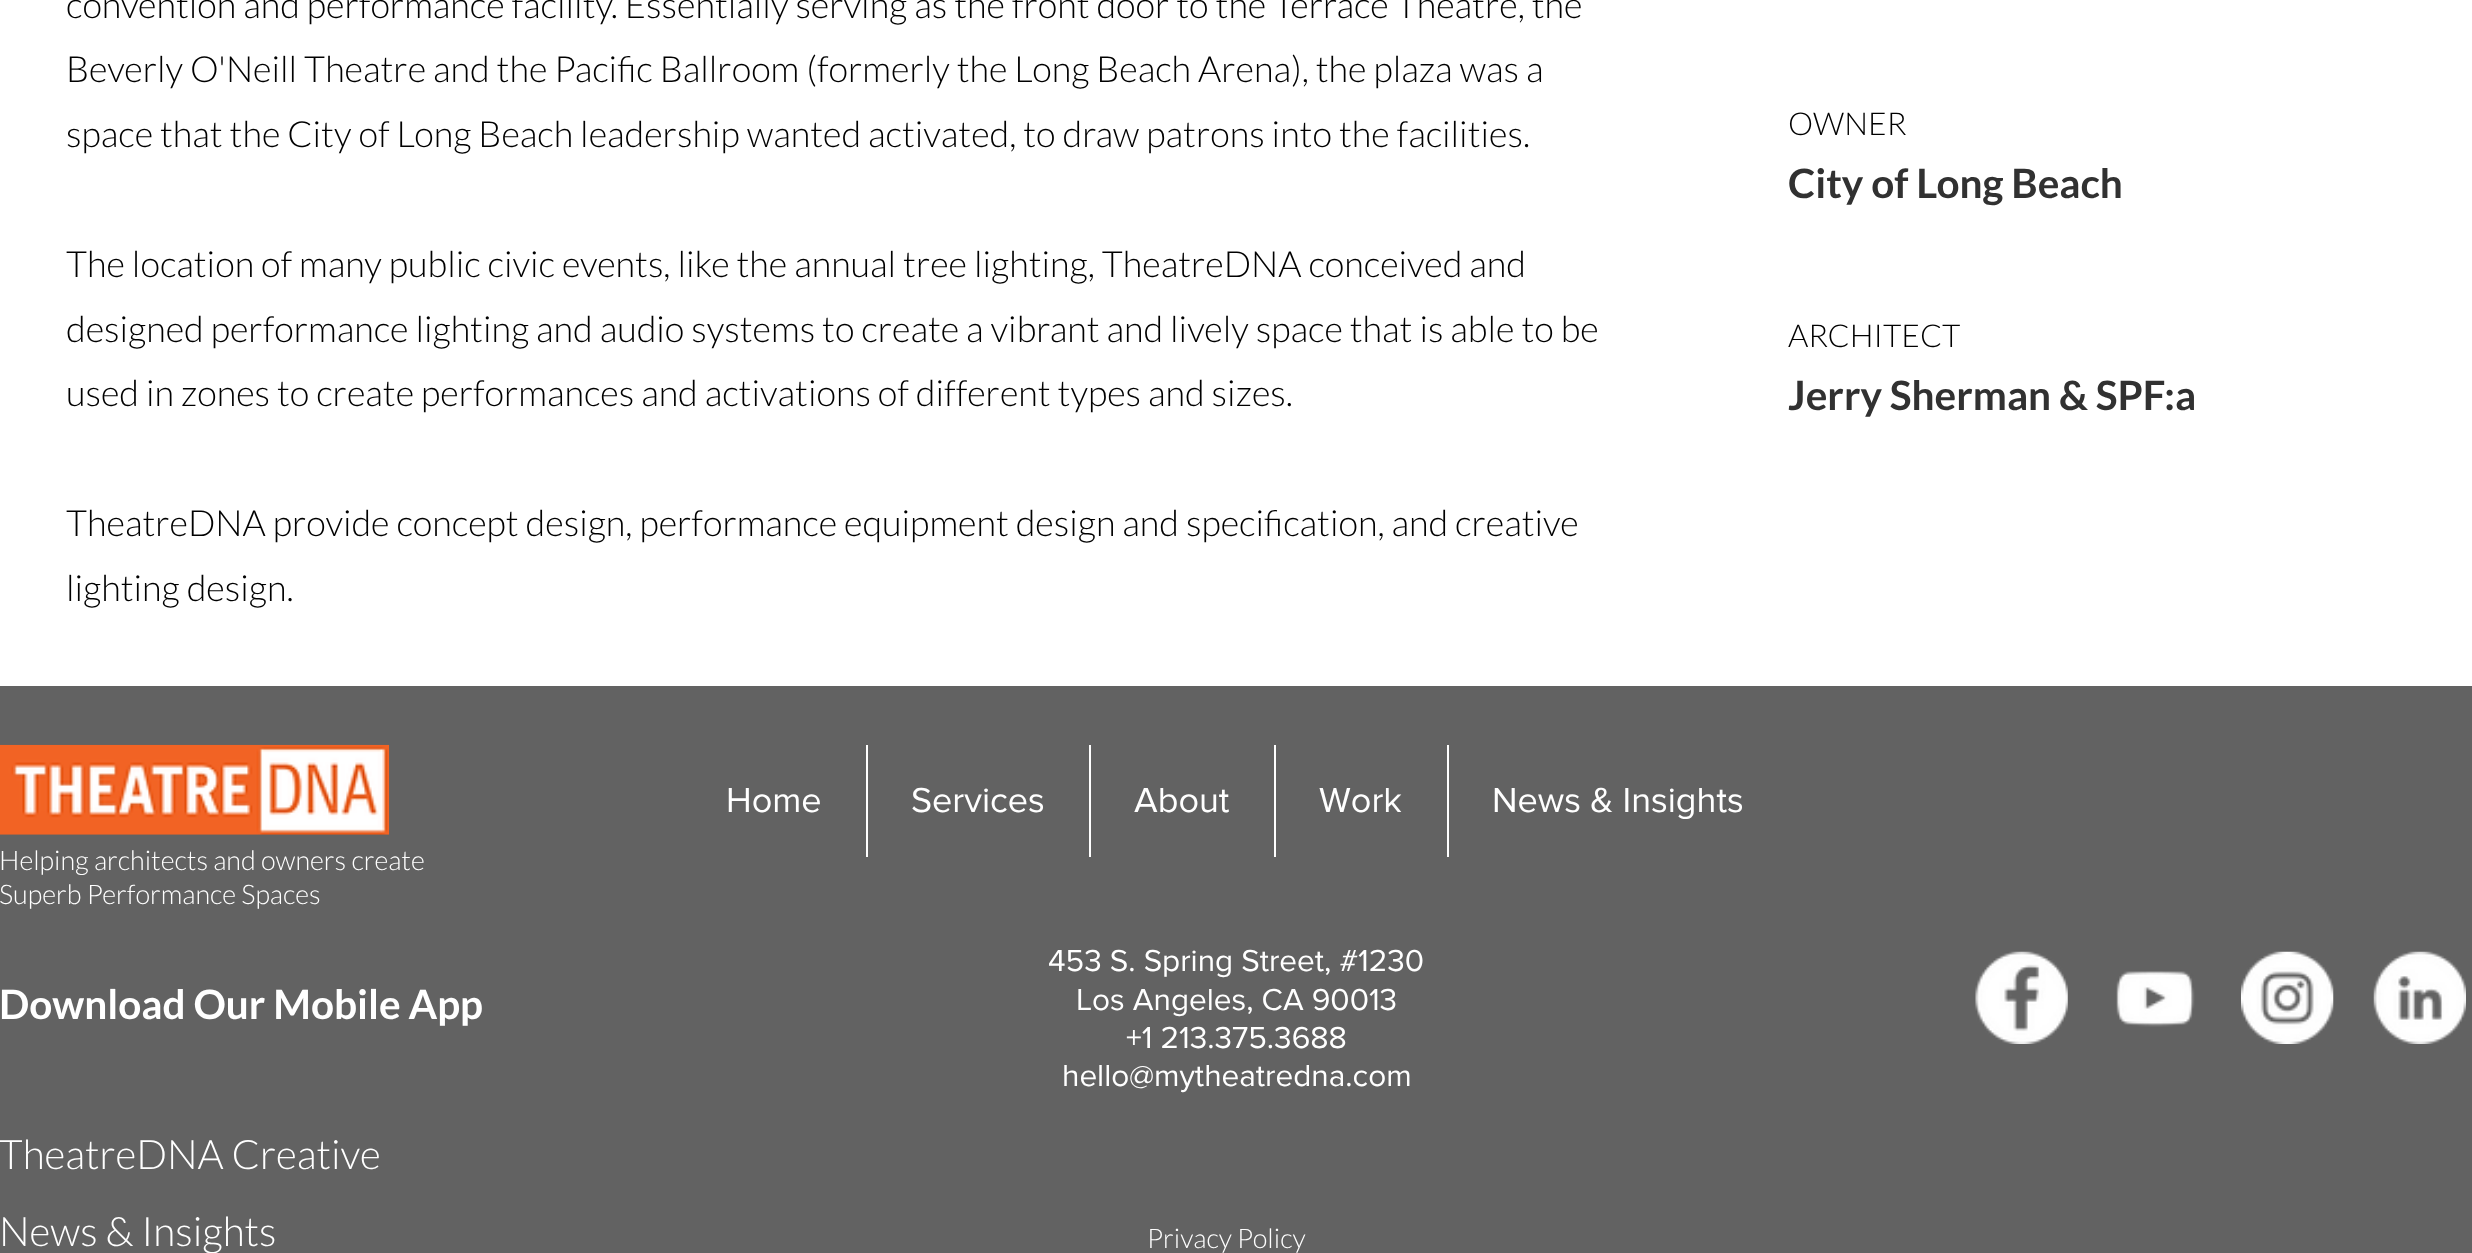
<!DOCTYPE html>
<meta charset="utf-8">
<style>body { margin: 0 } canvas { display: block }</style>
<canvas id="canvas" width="2472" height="1253"></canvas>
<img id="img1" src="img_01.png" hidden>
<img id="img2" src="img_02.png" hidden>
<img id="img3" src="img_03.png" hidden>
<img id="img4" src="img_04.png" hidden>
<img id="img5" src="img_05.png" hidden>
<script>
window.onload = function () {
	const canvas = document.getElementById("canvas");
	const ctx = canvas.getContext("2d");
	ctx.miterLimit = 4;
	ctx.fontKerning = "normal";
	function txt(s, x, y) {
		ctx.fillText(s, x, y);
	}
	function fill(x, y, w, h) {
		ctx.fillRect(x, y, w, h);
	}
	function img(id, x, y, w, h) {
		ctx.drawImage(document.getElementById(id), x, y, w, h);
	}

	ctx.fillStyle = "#FFFFFF";
	fill(0, 0, 2472, 1253);
	ctx.fillStyle = "#626262";
	fill(0, 686, 2472, 567);
	img("img1", 0, 744, 390, 91);
	ctx.fillStyle = "#FFFFFF";
	fill(866, 745, 2, 112);
	fill(1089, 745, 2, 112);
	fill(1274, 745, 2, 112);
	fill(1447, 745, 2, 112);
	img("img2", 1975, 951, 93, 93);
	img("img3", 2116, 971, 79, 56);
	img("img4", 2241, 951, 93, 93);
	img("img5", 2373, 951, 93, 93);
	ctx.font = "300 36px Lato";
	ctx.fillStyle = "#000000";
	txt("convention and performance facility. Essentially serving as the front door to the Terrace Theatre, the", 66, 18);
	txt("Beverly O'Neill Theatre and the Pacific Ballroom (formerly the Long Beach Arena), the plaza was a", 66, 82);
	txt("space that the City of Long Beach leadership wanted activated, to draw patrons into the facilities.", 66, 147);
	txt("The location of many public civic events, like the annual tree lighting, TheatreDNA conceived and", 66, 277);
	txt("designed performance lighting and audio systems to create a vibrant and lively space that is able to be", 66, 342);
	txt("used in zones to create performances and activations of different types and sizes.", 66, 406);
	txt("TheatreDNA provide concept design, performance equipment design and specification, and creative", 66, 536);
	txt("lighting design.", 66, 601);
	ctx.font = "300 31.5px Lato";
	txt("OWNER", 1788, 135);
	ctx.font = "bold 40.5px Lato";
	ctx.fillStyle = "#313131";
	txt("City of Long Beach", 1788, 198);
	ctx.font = "300 31.5px Lato";
	ctx.fillStyle = "#000000";
	txt("ARCHITECT", 1788, 347);
	ctx.font = "bold 40.5px Lato";
	ctx.fillStyle = "#313131";
	txt("Jerry Sherman & SPF:a", 1788, 410);
	ctx.font = "36px 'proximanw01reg'";
	ctx.fillStyle = "#FFFFFF";
	txt("Home", 726, 812);
	txt("Services", 911, 812);
	txt("About", 1134, 812);
	txt("Work", 1319, 812);
	txt("News & Insights", 1492, 812);
	ctx.font = "300 27px Lato";
	txt("Helping architects and owners create", -1, 870);
	txt("Superb Performance Spaces", -1, 904);
	ctx.font = "bold 40.5px Lato";
	txt("Download Our Mobile App", -1, 1019);
	ctx.font = "31.5px 'proximanw01reg'";
	txt("453 S. Spring Street, #1230", 1048, 971);
	txt("Los Angeles, CA 90013", 1076, 1010);
	txt("+1 213.375.3688", 1126, 1048);
	txt("hello@mytheatredna.com", 1062, 1086);
	ctx.font = "300 40.5px Lato";
	txt("TheatreDNA Creative", -1, 1169);
	txt("News & Insights", -1, 1246);
	ctx.font = "300 27px Lato";
	txt("Privacy Policy", 1147, 1248);
};
</script>
